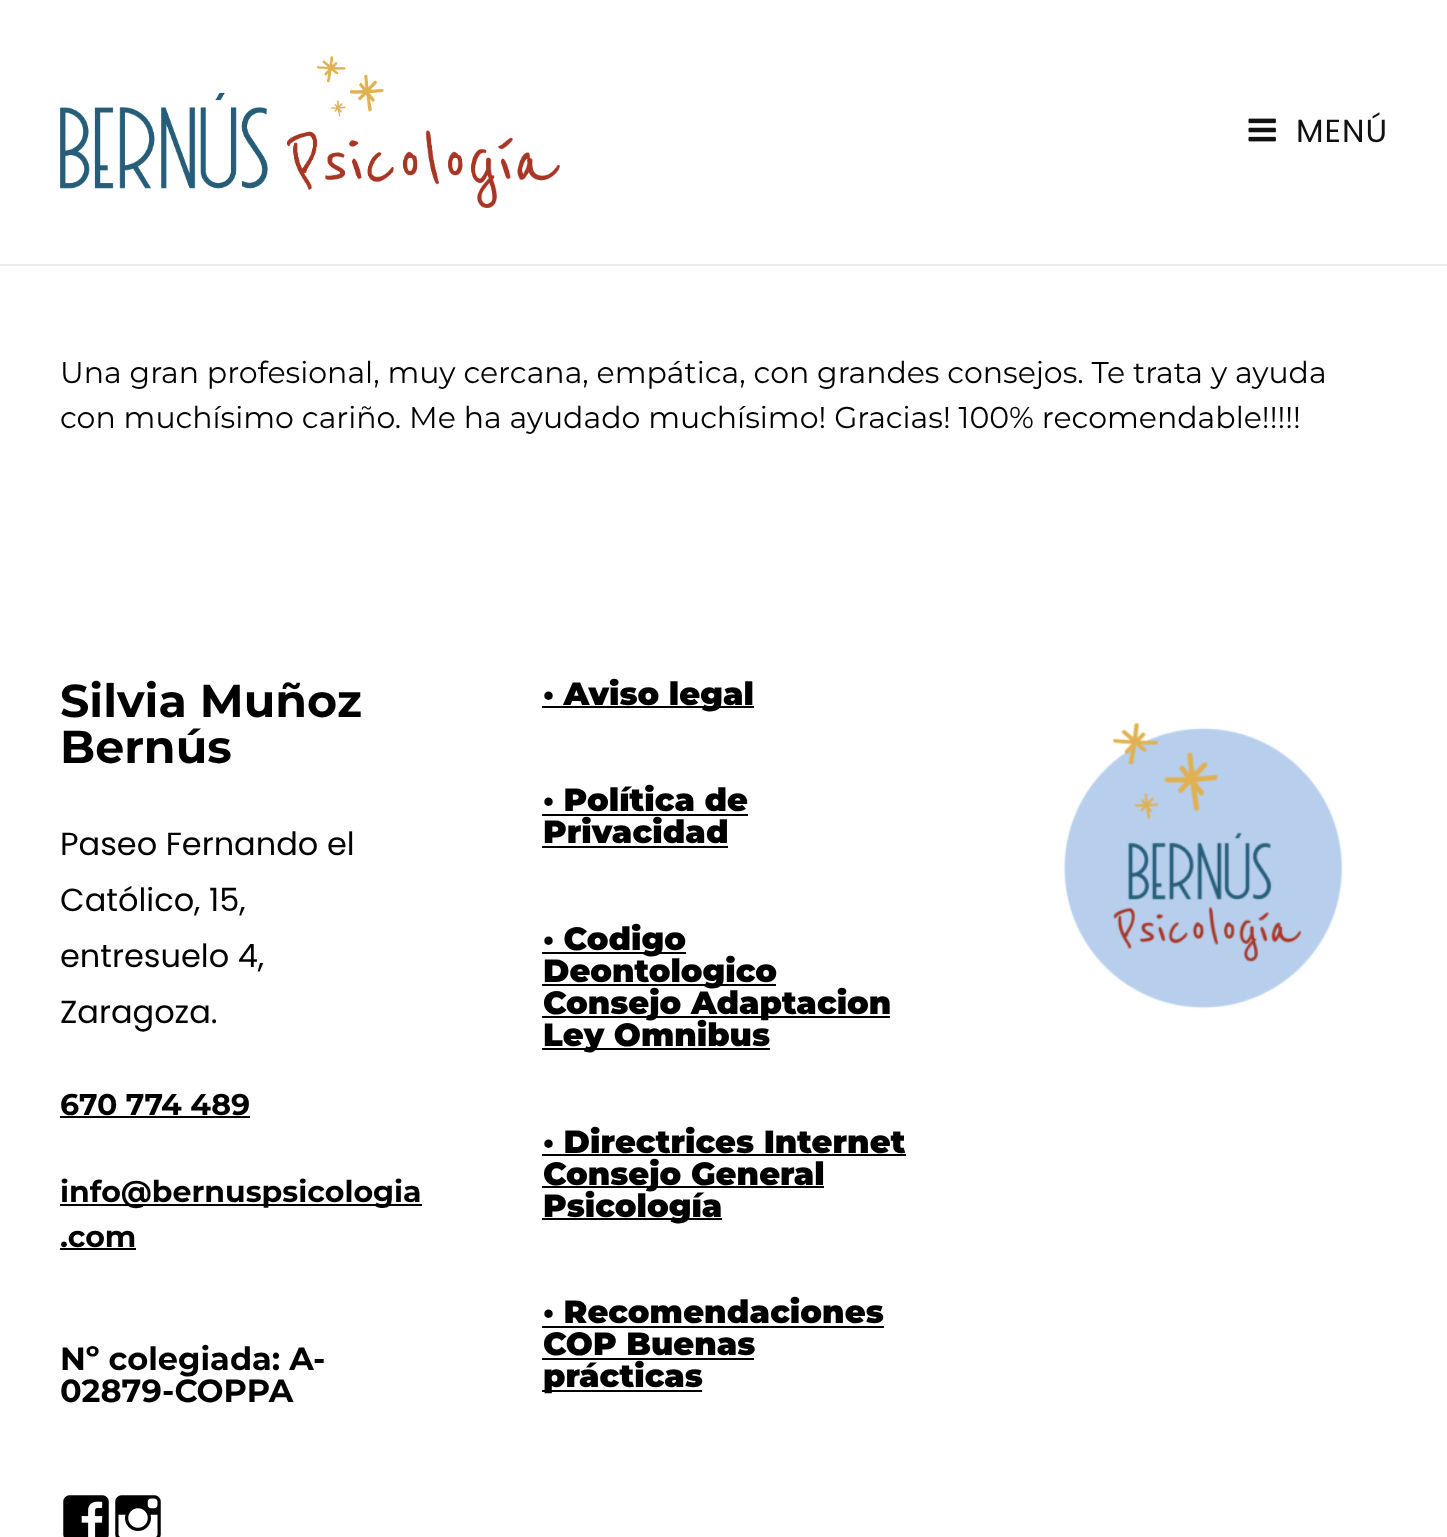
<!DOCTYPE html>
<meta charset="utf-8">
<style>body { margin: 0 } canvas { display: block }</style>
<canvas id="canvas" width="1447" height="1537"></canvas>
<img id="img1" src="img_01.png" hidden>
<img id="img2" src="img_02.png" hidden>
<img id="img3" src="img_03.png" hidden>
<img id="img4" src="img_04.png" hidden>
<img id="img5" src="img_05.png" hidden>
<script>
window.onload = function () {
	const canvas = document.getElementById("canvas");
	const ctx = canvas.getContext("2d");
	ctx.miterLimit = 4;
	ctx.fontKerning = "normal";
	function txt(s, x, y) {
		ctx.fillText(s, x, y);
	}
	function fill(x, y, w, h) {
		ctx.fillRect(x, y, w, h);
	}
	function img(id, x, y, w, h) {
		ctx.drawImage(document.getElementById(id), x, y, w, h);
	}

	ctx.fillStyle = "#FFFFFF";
	fill(0, 0, 1447, 1537);
	img("img1", 60, 56, 500, 152);
	img("img2", 1248, 118, 28, 24);
	ctx.fillStyle = "#EBEBEB";
	fill(0, 264, 1447, 2);
	ctx.fillStyle = "#000000";
	fill(60, 1116, 190, 2);
	fill(60, 1204, 362, 2);
	fill(60, 1248, 76, 2);
	img("img3", 63, 1495, 46, 42);
	img("img4", 115, 1495, 46, 42);
	fill(542, 706, 212, 2);
	fill(542, 814, 206, 2);
	fill(542, 846, 186, 2);
	fill(542, 952, 144, 2);
	fill(542, 984, 234, 2);
	fill(542, 1016, 348, 2);
	fill(542, 1048, 228, 2);
	fill(542, 1154, 364, 2);
	fill(542, 1186, 282, 2);
	fill(542, 1218, 180, 2);
	fill(542, 1326, 342, 2);
	fill(542, 1358, 212, 2);
	fill(542, 1390, 160, 2);
	img("img5", 1063, 722, 280, 287);
	ctx.letterSpacing = "1px";
	ctx.font = "32px Poppins";
	ctx.fillStyle = "#111111";
	txt("MENÚ", 1296, 142);
	ctx.letterSpacing = "0px";
	ctx.font = "30px Montserrat";
	ctx.fillStyle = "#000000";
	txt("Una gran profesional, muy cercana, empática, con grandes consejos. Te trata y ayuda", 60, 383);
	txt("con muchísimo cariño. Me ha ayudado muchísimo! Gracias! 100% recomendable!!!!!", 60, 428);
	ctx.font = "bold 46px Montserrat";
	txt("Silvia Muñoz", 60, 717);
	txt("Bernús", 60, 763);
	ctx.font = "32px Poppins";
	txt("Paseo Fernando el", 60, 855);
	txt("Católico, 15,", 60, 911);
	txt("entresuelo 4,", 60, 967);
	txt("Zaragoza.", 60, 1023);
	ctx.font = "bold 30px Montserrat";
	txt("670 774 489", 60, 1115);
	txt("info@bernuspsicologia", 60, 1202);
	txt(".com", 60, 1247);
	ctx.font = "bold 32px Montserrat";
	txt("Nº colegiada: A-", 60, 1370);
	txt("02879-COPPA", 60, 1402);
	ctx.font = "900 32px Montserrat";
	txt("· Aviso legal", 543, 705);
	txt("· Política de", 543, 811);
	txt("Privacidad", 543, 843);
	txt("· Codigo", 543, 950);
	txt("Deontologico", 543, 982);
	txt("Consejo Adaptacion", 543, 1014);
	txt("Ley Omnibus", 543, 1046);
	txt("· Directrices Internet", 543, 1153);
	txt("Consejo General", 543, 1185);
	txt("Psicología", 543, 1217);
	txt("· Recomendaciones", 543, 1323);
	txt("COP Buenas", 543, 1355);
	txt("prácticas", 543, 1387);
};
</script>
